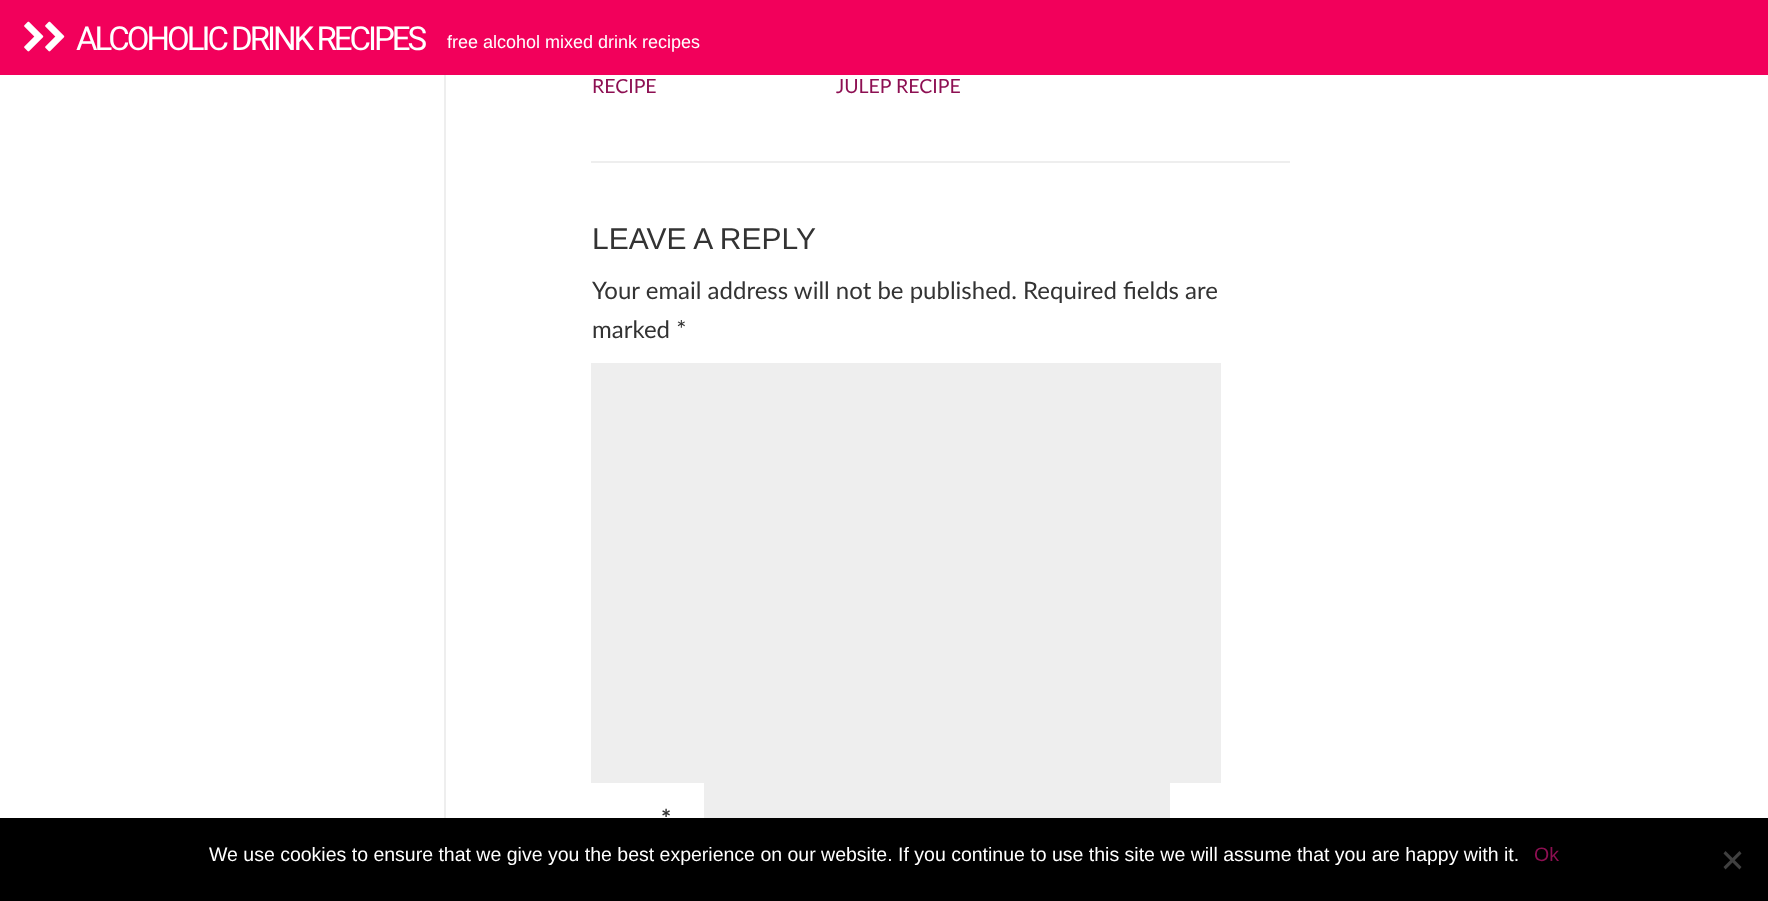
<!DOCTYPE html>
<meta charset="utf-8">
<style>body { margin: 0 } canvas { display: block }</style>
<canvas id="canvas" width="1768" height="901"></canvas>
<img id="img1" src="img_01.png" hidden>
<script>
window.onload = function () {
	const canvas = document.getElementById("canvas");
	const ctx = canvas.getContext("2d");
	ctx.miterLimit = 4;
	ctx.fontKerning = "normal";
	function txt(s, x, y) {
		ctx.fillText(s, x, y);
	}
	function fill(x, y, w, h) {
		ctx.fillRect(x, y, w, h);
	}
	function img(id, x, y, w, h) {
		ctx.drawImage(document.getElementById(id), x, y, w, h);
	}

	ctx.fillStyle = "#FFFFFF";
	fill(0, 0, 1768, 901);
	ctx.fillStyle = "#F2005B";
	fill(0, 0, 1768, 75);
	img("img1", 24, 21, 20, 31);
	img("img1", 45, 21, 20, 31);
	ctx.fillStyle = "#EEEEEE";
	fill(444, 75, 2, 743);
	fill(591, 161, 699, 2);
	fill(591, 363, 630, 420);
	fill(704, 783, 466, 35);
	ctx.fillStyle = "#000000";
	fill(0, 818, 1768, 83);
	ctx.fillStyle = "#404040";
	ctx.beginPath();
	ctx.moveTo(1739.5, 851);
	ctx.lineTo(1741.5, 853.5);
	ctx.lineTo(1725.5, 869.5);
	ctx.lineTo(1723.5, 867);
	ctx.closePath();
	ctx.fill();
	ctx.beginPath();
	ctx.moveTo(1723.5, 853.5);
	ctx.lineTo(1725.5, 851);
	ctx.lineTo(1741.5, 867);
	ctx.lineTo(1739.5, 869.5);
	ctx.closePath();
	ctx.fill();
	ctx.letterSpacing = "-3px";
	ctx.font = "33px Roboto";
	ctx.fillStyle = "#FFFFFF";
	txt("ALCOHOLIC DRINK RECIPES", 76, 50);
	ctx.letterSpacing = "0px";
	ctx.font = "18px Liberation Sans";
	txt("free alcohol mixed drink recipes", 447, 48);
	ctx.font = "19.5px Lato";
	ctx.fillStyle = "#8D0F52";
	txt("RECIPE", 592, 93);
	txt("JULEP RECIPE", 836, 93);
	ctx.font = "30px Liberation Sans";
	ctx.fillStyle = "#333333";
	txt("LEAVE A REPLY", 592, 249);
	ctx.font = "24px Lato";
	txt("Your email address will not be published. Required fields are", 592, 299);
	txt("marked *", 592, 338);
	ctx.font = "bold 24px Lato";
	txt("*", 661, 827);
	ctx.font = "19.5px Liberation Sans";
	ctx.fillStyle = "#FFFFFF";
	txt("We use cookies to ensure that we give you the best experience on our website. If you continue to use this site we will assume that you are happy with it.", 209, 861);
	ctx.fillStyle = "#8D0F52";
	txt("Ok", 1534, 861);
};
</script>
